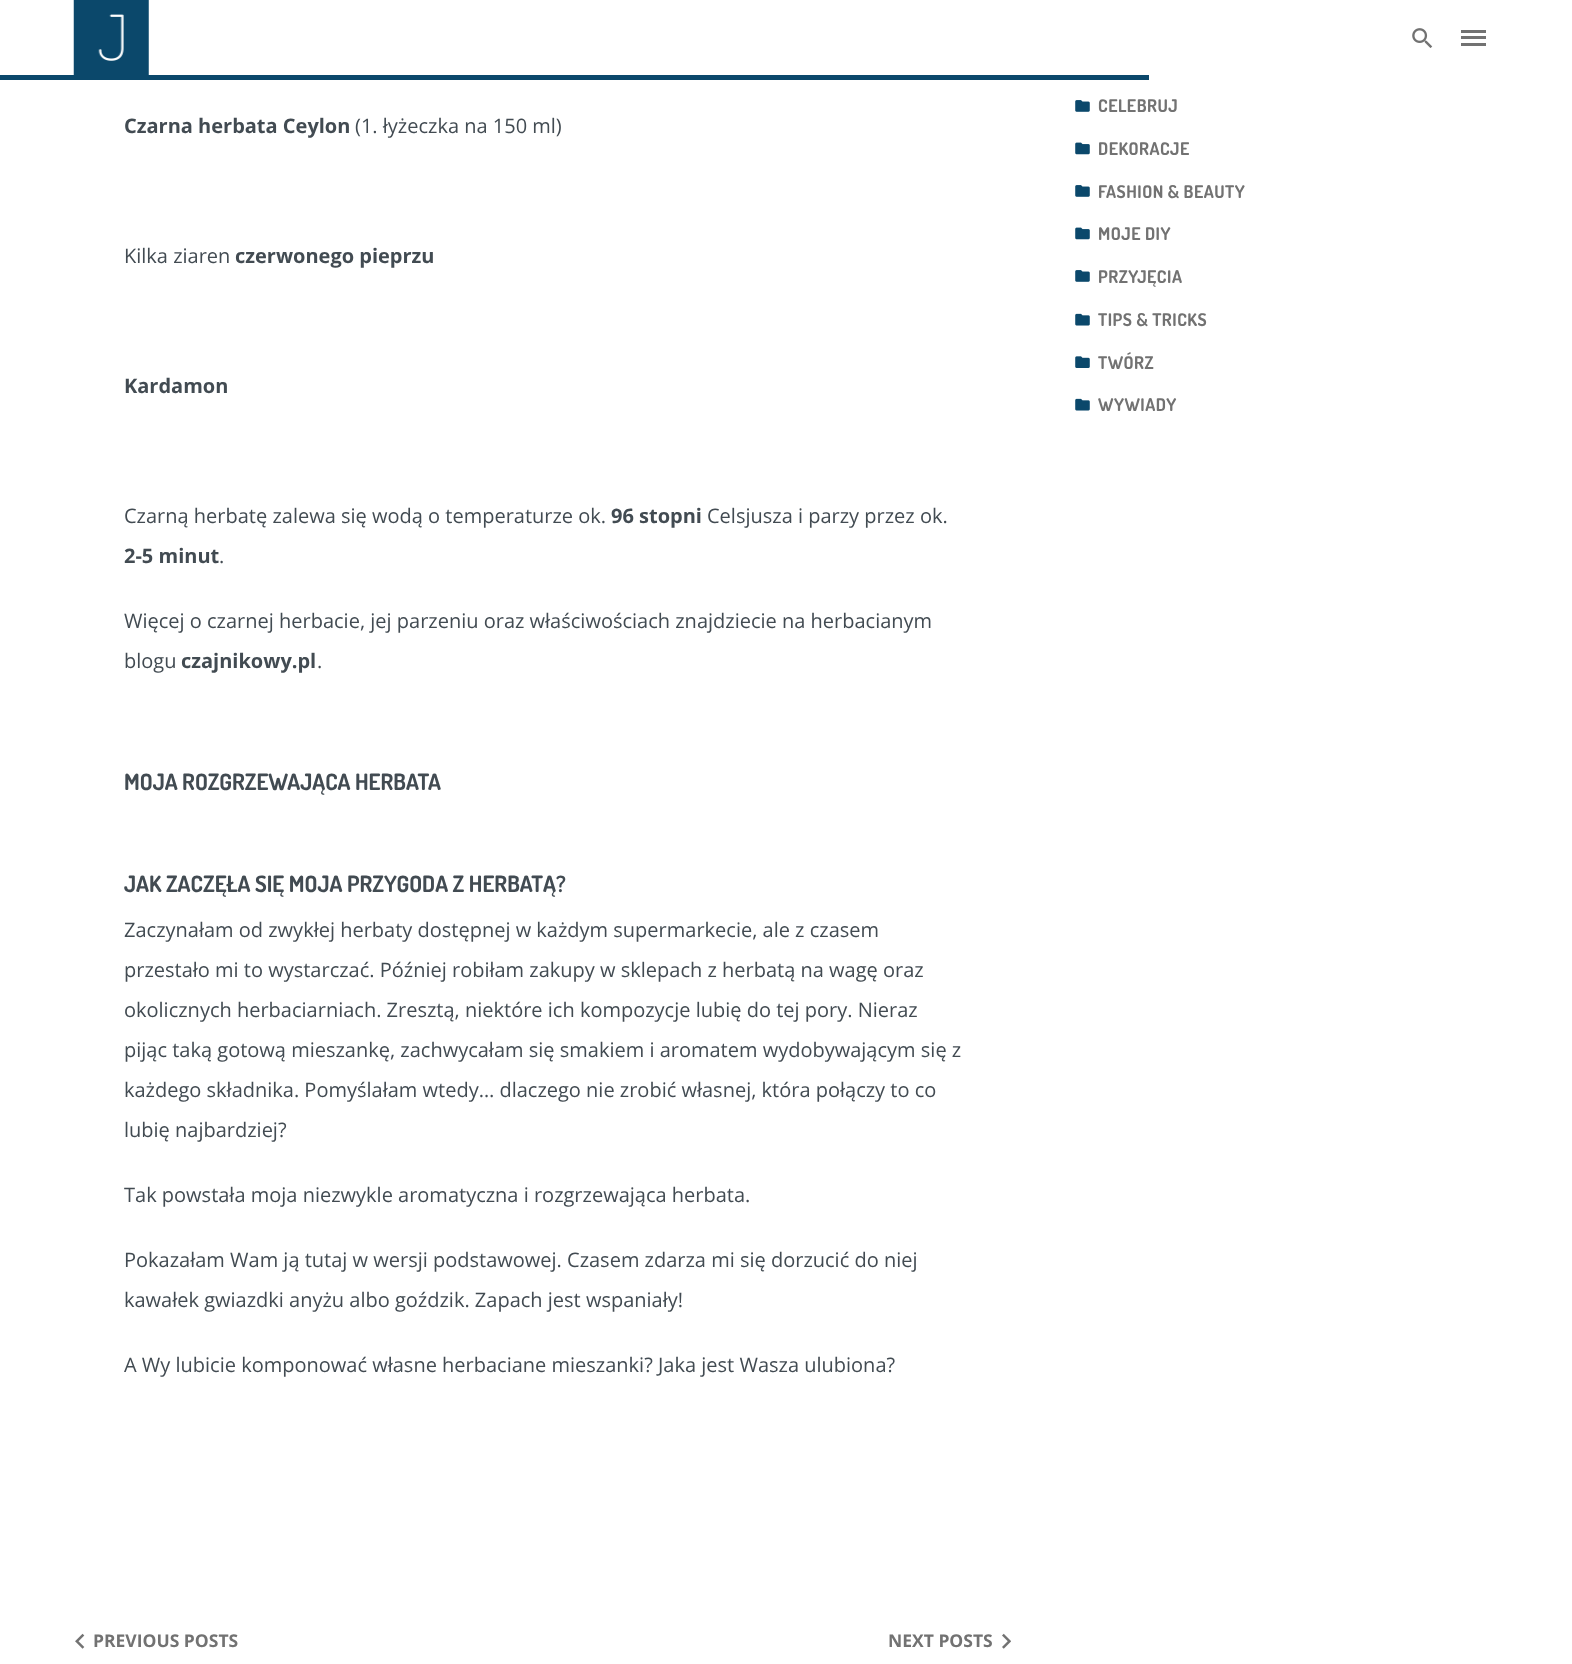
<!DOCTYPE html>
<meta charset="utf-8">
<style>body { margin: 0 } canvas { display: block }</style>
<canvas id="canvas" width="1572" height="1664"></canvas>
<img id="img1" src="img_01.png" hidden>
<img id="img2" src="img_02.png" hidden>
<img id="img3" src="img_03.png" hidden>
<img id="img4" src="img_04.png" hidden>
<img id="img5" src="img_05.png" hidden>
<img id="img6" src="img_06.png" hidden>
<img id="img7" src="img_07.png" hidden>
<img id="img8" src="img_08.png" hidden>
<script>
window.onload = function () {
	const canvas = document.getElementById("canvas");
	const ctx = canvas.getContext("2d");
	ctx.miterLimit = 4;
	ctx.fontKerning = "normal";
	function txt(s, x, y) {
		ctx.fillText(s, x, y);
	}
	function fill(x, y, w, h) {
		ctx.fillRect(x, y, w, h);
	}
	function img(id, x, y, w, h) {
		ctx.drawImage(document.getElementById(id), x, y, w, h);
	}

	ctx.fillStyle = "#FFFFFF";
	fill(0, 0, 1572, 1664);
	img("img1", 73, 0, 76, 75);
	img("img2", 1412, 28, 21, 20);
	ctx.fillStyle = "#727272";
	fill(1461, 30, 25, 3);
	fill(1461, 36, 25, 3);
	fill(1461, 43, 25, 3);
	ctx.fillStyle = "#0B486B";
	fill(0, 75, 1149, 5);
	img("img3", 75, 1633, 10, 16);
	img("img4", 1002, 1633, 9, 16);
	img("img5", 1075, 100, 15, 12);
	img("img6", 1075, 142, 15, 13);
	img("img5", 1075, 185, 15, 12);
	img("img6", 1075, 227, 15, 13);
	img("img5", 1075, 270, 15, 12);
	img("img7", 1075, 313, 15, 13);
	img("img8", 1075, 356, 15, 12);
	img("img7", 1075, 398, 15, 13);
	ctx.font = "bold 20px Open Sans";
	ctx.fillStyle = "#424B52";
	txt("Czarna herbata Ceylon", 124, 133);
	ctx.font = "20px Open Sans";
	txt("(1. łyżeczka na 150 ml)", 355, 133);
	txt("Kilka ziaren", 124, 263);
	ctx.font = "bold 20px Open Sans";
	txt("czerwonego pieprzu", 235, 263);
	txt("Kardamon", 124, 393);
	ctx.font = "20px Open Sans";
	txt("Czarną herbatę zalewa się wodą o temperaturze ok.", 124, 523);
	ctx.font = "bold 20px Open Sans";
	txt("96 stopni", 611, 523);
	ctx.font = "20px Open Sans";
	txt("Celsjusza i parzy przez ok.", 707, 523);
	ctx.font = "bold 20px Open Sans";
	txt("2-5 minut", 124, 563);
	ctx.font = "20px Open Sans";
	txt(".", 219, 563);
	txt("Więcej o czarnej herbacie, jej parzeniu oraz właściwościach znajdziecie na herbacianym", 124, 628);
	txt("blogu", 124, 668);
	ctx.font = "bold 20px Open Sans";
	txt("czajnikowy.pl", 181, 668);
	ctx.font = "20px Open Sans";
	txt(".", 317, 668);
	ctx.font = "bold 22.5px Dosis";
	txt("MOJA ROZGRZEWAJĄCA HERBATA", 124, 790);
	txt("JAK ZACZĘŁA SIĘ MOJA PRZYGODA Z HERBATĄ?", 124, 892);
	ctx.font = "20px Open Sans";
	txt("Zaczynałam od zwykłej herbaty dostępnej w każdym supermarkecie, ale z czasem", 124, 937);
	txt("przestało mi to wystarczać. Później robiłam zakupy w sklepach z herbatą na wagę oraz", 124, 977);
	txt("okolicznych herbaciarniach. Zresztą, niektóre ich kompozycje lubię do tej pory. Nieraz", 124, 1017);
	txt("pijąc taką gotową mieszankę, zachwycałam się smakiem i aromatem wydobywającym się z", 124, 1057);
	txt("każdego składnika. Pomyślałam wtedy… dlaczego nie zrobić własnej, która połączy to co", 124, 1097);
	txt("lubię najbardziej?", 124, 1137);
	txt("Tak powstała moja niezwykle aromatyczna i rozgrzewająca herbata.", 124, 1202);
	txt("Pokazałam Wam ją tutaj w wersji podstawowej. Czasem zdarza mi się dorzucić do niej", 124, 1267);
	txt("kawałek gwiazdki anyżu albo goździk. Zapach jest wspaniały!", 124, 1307);
	txt("A Wy lubicie komponować własne herbaciane mieszanki? Jaka jest Wasza ulubiona?", 124, 1372);
	ctx.font = "bold 17.5px Open Sans";
	ctx.fillStyle = "#727272";
	txt("PREVIOUS POSTS", 93, 1647);
	txt("NEXT POSTS", 888, 1647);
	ctx.letterSpacing = "0.5px";
	ctx.font = "bold 17.5px Dosis";
	txt("CELEBRUJ", 1098, 112);
	txt("DEKORACJE", 1098, 155);
	txt("FASHION & BEAUTY", 1098, 198);
	txt("MOJE DIY", 1098, 240);
	txt("PRZYJĘCIA", 1098, 283);
	txt("TIPS & TRICKS", 1098, 326);
	txt("TWÓRZ", 1098, 369);
	txt("WYWIADY", 1098, 411);
};
</script>
